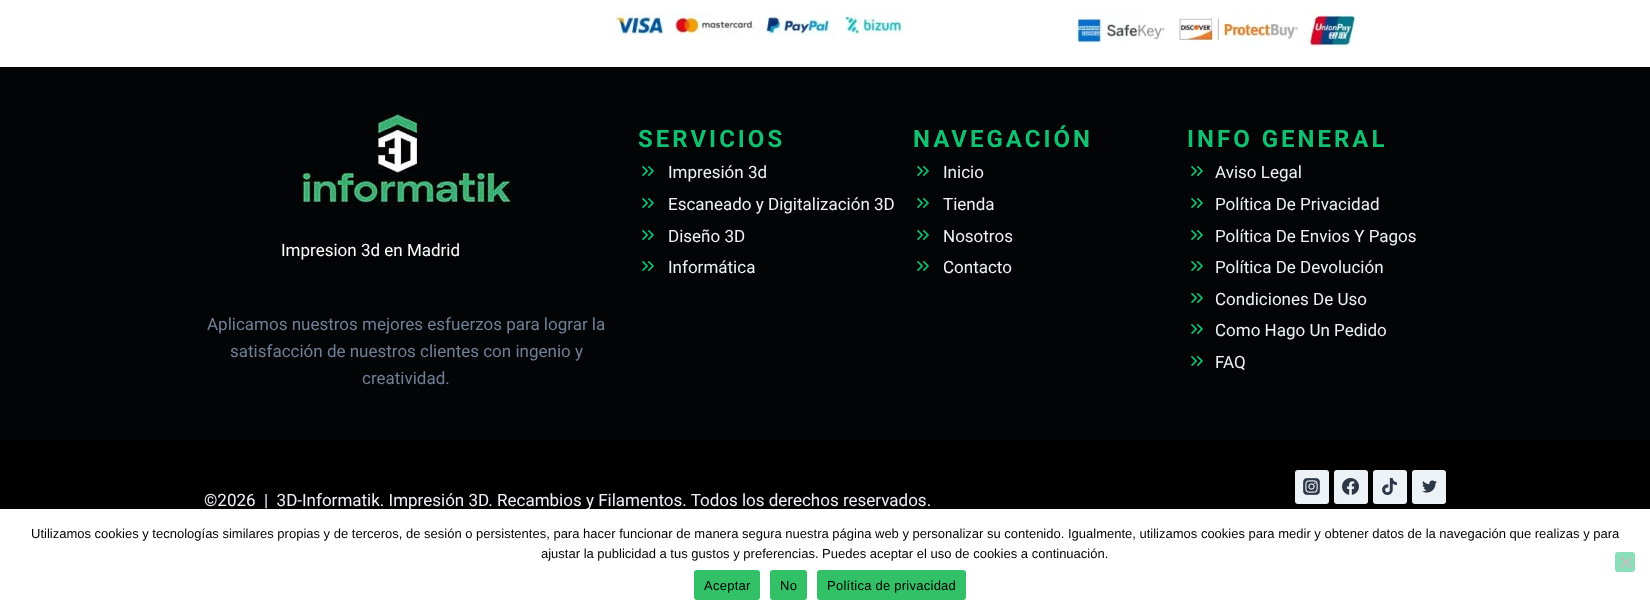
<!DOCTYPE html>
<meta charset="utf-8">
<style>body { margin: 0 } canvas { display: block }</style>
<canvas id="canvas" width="1650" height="615"></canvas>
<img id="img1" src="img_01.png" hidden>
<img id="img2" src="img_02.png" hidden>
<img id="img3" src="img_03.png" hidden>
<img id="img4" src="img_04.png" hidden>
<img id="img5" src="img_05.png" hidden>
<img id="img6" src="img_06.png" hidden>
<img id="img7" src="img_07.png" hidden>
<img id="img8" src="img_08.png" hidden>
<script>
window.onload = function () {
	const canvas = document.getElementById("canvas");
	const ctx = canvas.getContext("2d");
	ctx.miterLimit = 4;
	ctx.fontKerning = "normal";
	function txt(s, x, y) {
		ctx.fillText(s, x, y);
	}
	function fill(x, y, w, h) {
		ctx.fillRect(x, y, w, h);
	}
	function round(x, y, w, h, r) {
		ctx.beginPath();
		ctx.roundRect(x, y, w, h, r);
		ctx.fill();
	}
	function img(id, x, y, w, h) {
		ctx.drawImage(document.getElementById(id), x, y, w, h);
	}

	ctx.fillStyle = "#000000";
	fill(0, 0, 1650, 615);
	ctx.fillStyle = "#FFFFFF";
	fill(0, 0, 1650, 67);
	img("img1", 615, 12, 289, 24);
	img("img2", 1075, 12, 281, 36);
	ctx.fillStyle = "#030406";
	fill(0, 67, 1650, 373);
	img("img3", 291, 107, 223, 102);
	img("img4", 642, 166, 12, 10);
	img("img4", 642, 198, 12, 10);
	img("img4", 642, 230, 12, 10);
	img("img4", 642, 261, 12, 10);
	img("img4", 917, 166, 12, 10);
	img("img4", 917, 198, 12, 10);
	img("img4", 917, 230, 12, 10);
	img("img4", 917, 261, 12, 10);
	img("img4", 1191, 166, 12, 10);
	img("img4", 1191, 198, 12, 10);
	img("img4", 1191, 230, 12, 10);
	img("img4", 1191, 261, 12, 10);
	img("img4", 1191, 293, 12, 10);
	img("img4", 1191, 324, 12, 10);
	img("img4", 1191, 356, 12, 10);
	ctx.fillStyle = "#EDF2F7";
	round(1295, 470, 34, 34, 3);
	img("img5", 1303, 478, 17, 17);
	round(1334, 470, 34, 34, 3);
	img("img6", 1342, 478, 17, 17);
	round(1373, 470, 34, 34, 3);
	img("img7", 1382, 478, 15, 17);
	round(1412, 470, 34, 34, 3);
	img("img8", 1422, 480, 15, 13);
	ctx.font = "17px Roboto";
	ctx.fillStyle = "#FFFFFF";
	txt("Impresion 3d en Madrid", 281, 256);
	ctx.fillStyle = "#718096";
	txt("Aplicamos nuestros mejores esfuerzos para lograr la", 207, 330);
	txt("satisfacción de nuestros clientes con ingenio y", 230, 357);
	txt("creatividad.", 362, 384);
	ctx.letterSpacing = "3px";
	ctx.font = "bold 24px Roboto";
	ctx.fillStyle = "#13BF70";
	txt("SERVICIOS", 638, 147);
	ctx.letterSpacing = "0px";
	ctx.font = "17px Roboto";
	ctx.fillStyle = "#EDF2F7";
	txt("Impresión 3d", 668, 178);
	txt("Escaneado y Digitalización 3D", 668, 210);
	txt("Diseño 3D", 668, 242);
	txt("Informática", 668, 273);
	ctx.letterSpacing = "3px";
	ctx.font = "bold 24px Roboto";
	ctx.fillStyle = "#13BF70";
	txt("NAVEGACIÓN", 913, 147);
	ctx.letterSpacing = "0px";
	ctx.font = "17px Roboto";
	ctx.fillStyle = "#EDF2F7";
	txt("Inicio", 943, 178);
	txt("Tienda", 943, 210);
	txt("Nosotros", 943, 242);
	txt("Contacto", 943, 273);
	ctx.letterSpacing = "3px";
	ctx.font = "bold 24px Roboto";
	ctx.fillStyle = "#13BF70";
	txt("INFO GENERAL", 1187, 147);
	ctx.letterSpacing = "0px";
	ctx.font = "17px Roboto";
	ctx.fillStyle = "#EDF2F7";
	txt("Aviso Legal", 1215, 178);
	txt("Política De Privacidad", 1215, 210);
	txt("Política De Envios Y Pagos", 1215, 242);
	txt("Política De Devolución", 1215, 273);
	txt("Condiciones De Uso", 1215, 305);
	txt("Como Hago Un Pedido", 1215, 336);
	txt("FAQ", 1215, 368);
	txt("©2026  |  3D-Informatik. Impresión 3D. Recambios y Filamentos. Todos los derechos reservados.", 204, 506);
	ctx.fillStyle = "#FFFFFF";
	fill(0, 509, 1650, 106);
	ctx.font = "13px Liberation Sans";
	ctx.fillStyle = "#000000";
	txt("Utilizamos cookies y tecnologías similares propias y de terceros, de sesión o persistentes, para hacer funcionar de manera segura nuestra página web y personalizar su contenido. Igualmente, utilizamos cookies para medir y obtener datos de la navegación que realizas y para", 31, 538);
	txt("ajustar la publicidad a tus gustos y preferencias. Puedes aceptar el uso de cookies a continuación.", 541, 558);
	ctx.fillStyle = "#89DFB8";
	round(1615, 552, 20, 20, 3);
	ctx.fillStyle = "#C0C0C0";
	ctx.beginPath();
	ctx.moveTo(1630.5, 556.5);
	ctx.lineTo(1632, 558);
	ctx.lineTo(1621.5, 568.5);
	ctx.lineTo(1620, 567);
	ctx.closePath();
	ctx.fill();
	ctx.beginPath();
	ctx.moveTo(1620, 558);
	ctx.lineTo(1621.5, 556.5);
	ctx.lineTo(1632, 567);
	ctx.lineTo(1630.5, 568.5);
	ctx.closePath();
	ctx.fill();
	ctx.fillStyle = "#32C166";
	round(694, 570, 66, 30, 3);
	ctx.letterSpacing = "0.25px";
	ctx.fillStyle = "#000000";
	txt("Aceptar", 704, 590);
	ctx.fillStyle = "#32C166";
	round(770, 570, 37, 30, 3);
	ctx.fillStyle = "#000000";
	txt("No", 780, 590);
	ctx.fillStyle = "#32C166";
	round(817, 570, 149, 30, 3);
	ctx.fillStyle = "#000000";
	txt("Política de privacidad", 827, 590);
};
</script>
